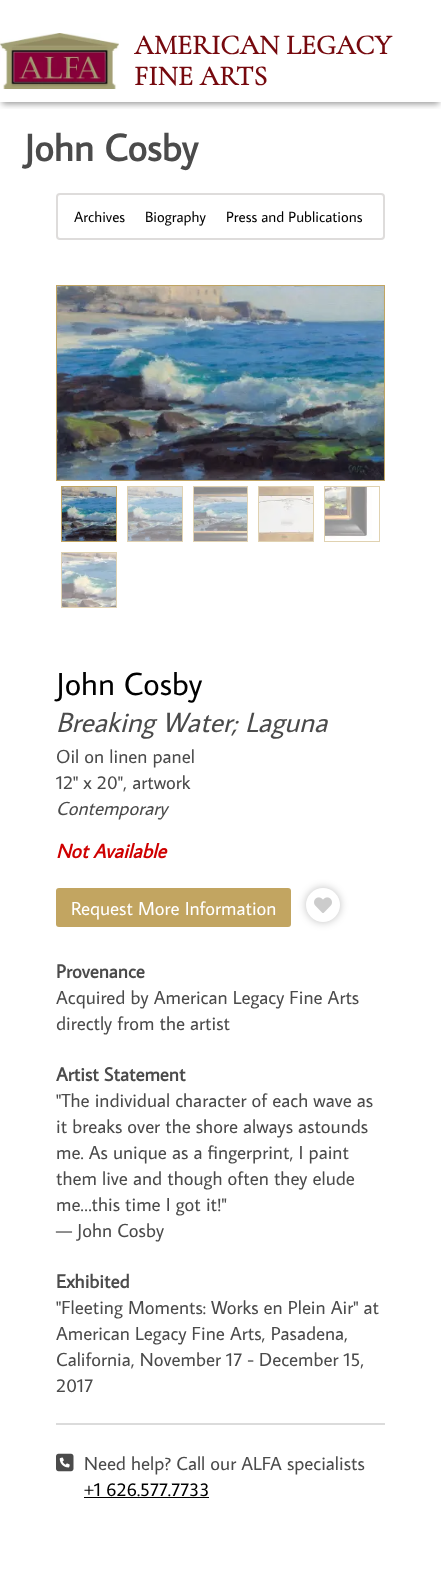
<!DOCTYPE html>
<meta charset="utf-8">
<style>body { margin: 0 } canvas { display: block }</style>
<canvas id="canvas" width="441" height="1571"></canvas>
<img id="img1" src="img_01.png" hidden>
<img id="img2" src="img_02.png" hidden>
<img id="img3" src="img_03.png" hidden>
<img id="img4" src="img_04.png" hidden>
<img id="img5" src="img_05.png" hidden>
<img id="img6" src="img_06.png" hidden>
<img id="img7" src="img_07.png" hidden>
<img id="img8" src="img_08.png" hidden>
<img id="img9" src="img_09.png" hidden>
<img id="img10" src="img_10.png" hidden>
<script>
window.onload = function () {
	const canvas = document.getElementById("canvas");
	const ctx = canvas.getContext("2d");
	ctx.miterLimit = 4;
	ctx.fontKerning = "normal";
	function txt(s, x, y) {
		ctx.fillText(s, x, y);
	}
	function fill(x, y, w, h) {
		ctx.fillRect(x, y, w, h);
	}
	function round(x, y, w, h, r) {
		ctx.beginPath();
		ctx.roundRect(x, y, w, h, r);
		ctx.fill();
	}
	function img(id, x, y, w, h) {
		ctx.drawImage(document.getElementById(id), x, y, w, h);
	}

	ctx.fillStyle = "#FFFFFF";
	fill(0, 0, 441, 1571);
	ctx.save();
	ctx.beginPath();
	ctx.rect(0, 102, 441, 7);
	ctx.clip();
	ctx.fillStyle = "rgba(0, 0, 0, 0.4)";
	ctx.filter = "blur(3px)";
	ctx.beginPath();
	ctx.rect(2, 6, 437, 98);
	ctx.fill();
	ctx.filter = "none";
	ctx.restore();
	img("img1", 0, 33, 119, 56);
	ctx.beginPath();
	ctx.roundRect(57, 194, 327, 45, 3);
	ctx.strokeStyle = "#DEDCDB";
	ctx.lineWidth = 2;
	ctx.stroke();
	ctx.strokeStyle = "#C1A562";
	ctx.lineWidth = 1;
	ctx.strokeRect(56.5, 285.5, 328, 195);
	img("img2", 57, 286, 327, 194);
	ctx.strokeRect(61.5, 486.5, 55, 55);
	img("img3", 62, 487, 54, 54);
	ctx.strokeStyle = "#E0D2B1";
	ctx.strokeRect(127.5, 486.5, 55, 55);
	img("img4", 128, 487, 54, 54);
	ctx.strokeRect(193.5, 486.5, 54, 55);
	img("img5", 194, 487, 53, 54);
	ctx.strokeRect(258.5, 486.5, 55, 55);
	img("img6", 259, 487, 54, 54);
	ctx.strokeRect(324.5, 486.5, 55, 55);
	img("img7", 325, 487, 47, 52);
	ctx.strokeRect(61.5, 552.5, 55, 55);
	img("img8", 62, 553, 54, 54);
	ctx.fillStyle = "#C2A561";
	round(56, 888, 235, 39, 3);
	ctx.fillStyle = "rgba(0, 0, 0, 0.25)";
	ctx.filter = "blur(4px)";
	ctx.beginPath();
	ctx.roundRect(306, 888, 34, 34, 17);
	ctx.fill();
	ctx.filter = "none";
	ctx.fillStyle = "#FFFFFF";
	ctx.beginPath();
	ctx.arc(323, 905, 17, 0, Math.PI * 2);
	ctx.fill();
	img("img9", 314, 897, 18, 16);
	ctx.fillStyle = "#DBDBDB";
	fill(56, 1423, 329, 2);
	img("img10", 56, 1453, 18, 19);
	ctx.fillStyle = "#000000";
	fill(84, 1497, 125, 1);
	ctx.font = "bold 28px Cormorant Garamond";
	ctx.fillStyle = "#76090E";
	txt("AMERICAN LEGACY", 134, 54);
	txt("FINE ARTS", 134, 85);
	ctx.font = "bold 38px Average Sans";
	ctx.fillStyle = "#4B4B4B";
	txt("John Cosby", 24, 161);
	ctx.font = "15px Average Sans";
	ctx.fillStyle = "#000000";
	txt("Archives", 74, 222);
	txt("Biography", 145, 222);
	txt("Press and Publications", 226, 222);
	ctx.font = "32px Average Sans";
	txt("John Cosby", 56, 695);
	ctx.font = "italic 28px Average Sans";
	ctx.fillStyle = "#4B4B4B";
	txt("Breaking Water; Laguna", 56, 732);
	ctx.font = "19px Average Sans";
	txt("Oil on linen panel", 56, 763);
	txt("12\" x 20\", artwork", 56, 789);
	ctx.font = "italic 19px Average Sans";
	txt("Contemporary", 56, 815);
	ctx.font = "italic bold 20px Average Sans";
	ctx.fillStyle = "#CF0000";
	txt("Not Available", 56, 858);
	ctx.font = "19px Average Sans";
	ctx.fillStyle = "#FFFFFF";
	txt("Request More Information", 71, 915);
	ctx.font = "bold 19px Average Sans";
	ctx.fillStyle = "#4B4B4B";
	txt("Provenance", 56, 978);
	ctx.font = "19px Average Sans";
	txt("Acquired by American Legacy Fine Arts", 56, 1004);
	txt("directly from the artist", 56, 1030);
	ctx.font = "bold 19px Average Sans";
	txt("Artist Statement", 56, 1081);
	ctx.font = "19px Average Sans";
	txt("\"The individual character of each wave as", 56, 1107);
	txt("it breaks over the shore always astounds", 56, 1133);
	txt("me. As unique as a fingerprint, I paint", 56, 1159);
	txt("them live and though often they elude", 56, 1185);
	txt("me…this time I got it!\"", 56, 1211);
	txt("— John Cosby", 56, 1237);
	ctx.font = "bold 19px Average Sans";
	txt("Exhibited", 56, 1288);
	ctx.font = "19px Average Sans";
	txt("\"Fleeting Moments: Works en Plein Air\" at", 56, 1314);
	txt("American Legacy Fine Arts, Pasadena,", 56, 1340);
	txt("California, November 17 - December 15,", 56, 1366);
	txt("2017", 56, 1392);
	txt("Need help? Call our ALFA specialists", 84, 1470);
	ctx.fillStyle = "#000000";
	txt("+1 626.577.7733", 84, 1496);
};
</script>
